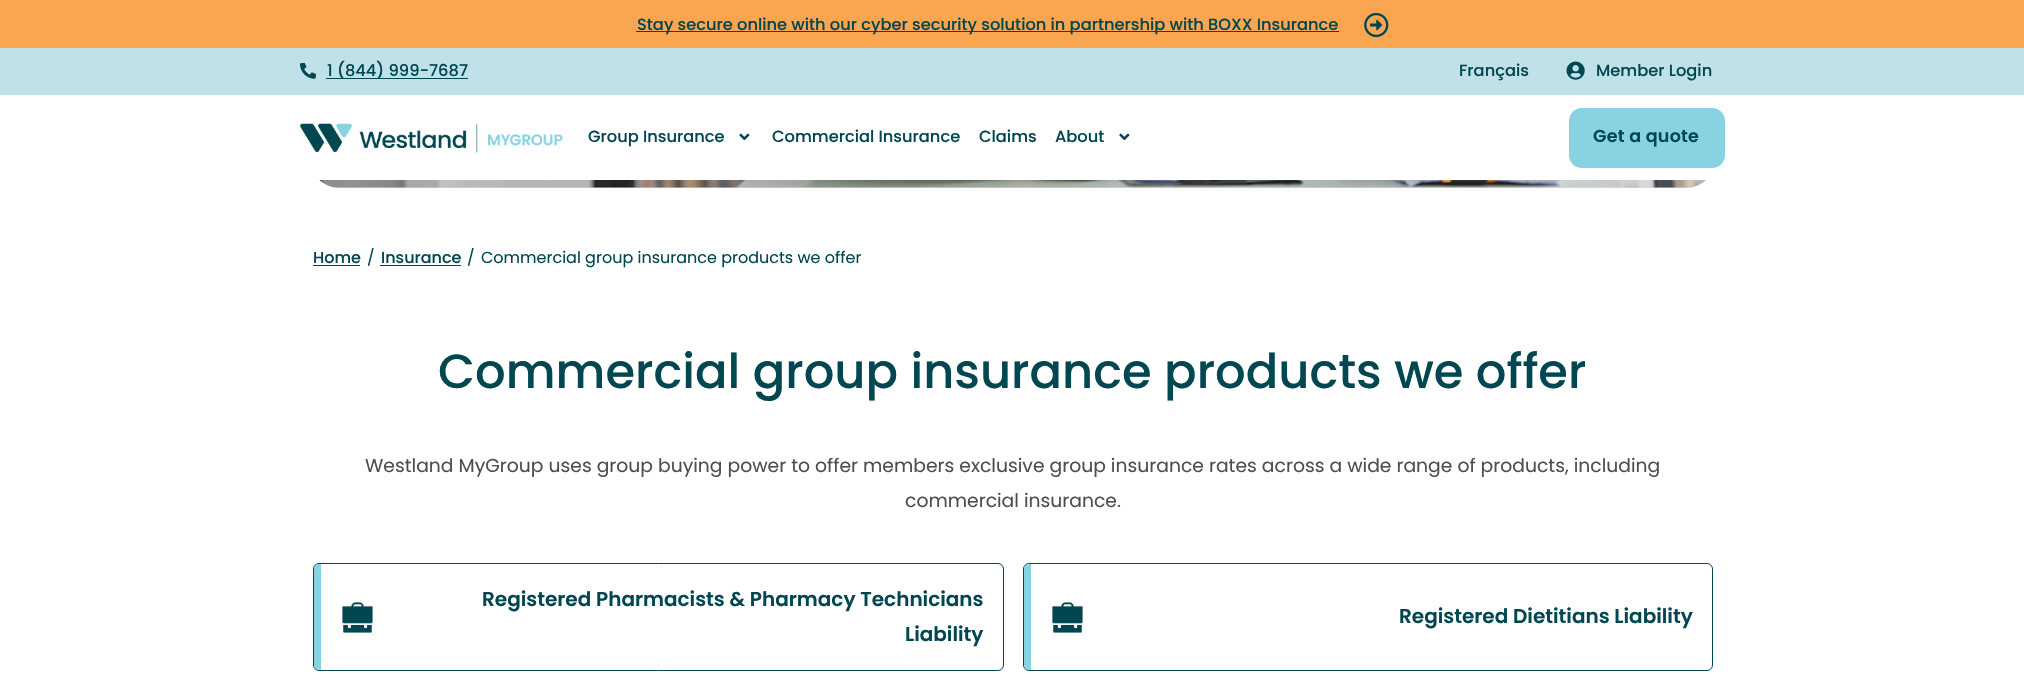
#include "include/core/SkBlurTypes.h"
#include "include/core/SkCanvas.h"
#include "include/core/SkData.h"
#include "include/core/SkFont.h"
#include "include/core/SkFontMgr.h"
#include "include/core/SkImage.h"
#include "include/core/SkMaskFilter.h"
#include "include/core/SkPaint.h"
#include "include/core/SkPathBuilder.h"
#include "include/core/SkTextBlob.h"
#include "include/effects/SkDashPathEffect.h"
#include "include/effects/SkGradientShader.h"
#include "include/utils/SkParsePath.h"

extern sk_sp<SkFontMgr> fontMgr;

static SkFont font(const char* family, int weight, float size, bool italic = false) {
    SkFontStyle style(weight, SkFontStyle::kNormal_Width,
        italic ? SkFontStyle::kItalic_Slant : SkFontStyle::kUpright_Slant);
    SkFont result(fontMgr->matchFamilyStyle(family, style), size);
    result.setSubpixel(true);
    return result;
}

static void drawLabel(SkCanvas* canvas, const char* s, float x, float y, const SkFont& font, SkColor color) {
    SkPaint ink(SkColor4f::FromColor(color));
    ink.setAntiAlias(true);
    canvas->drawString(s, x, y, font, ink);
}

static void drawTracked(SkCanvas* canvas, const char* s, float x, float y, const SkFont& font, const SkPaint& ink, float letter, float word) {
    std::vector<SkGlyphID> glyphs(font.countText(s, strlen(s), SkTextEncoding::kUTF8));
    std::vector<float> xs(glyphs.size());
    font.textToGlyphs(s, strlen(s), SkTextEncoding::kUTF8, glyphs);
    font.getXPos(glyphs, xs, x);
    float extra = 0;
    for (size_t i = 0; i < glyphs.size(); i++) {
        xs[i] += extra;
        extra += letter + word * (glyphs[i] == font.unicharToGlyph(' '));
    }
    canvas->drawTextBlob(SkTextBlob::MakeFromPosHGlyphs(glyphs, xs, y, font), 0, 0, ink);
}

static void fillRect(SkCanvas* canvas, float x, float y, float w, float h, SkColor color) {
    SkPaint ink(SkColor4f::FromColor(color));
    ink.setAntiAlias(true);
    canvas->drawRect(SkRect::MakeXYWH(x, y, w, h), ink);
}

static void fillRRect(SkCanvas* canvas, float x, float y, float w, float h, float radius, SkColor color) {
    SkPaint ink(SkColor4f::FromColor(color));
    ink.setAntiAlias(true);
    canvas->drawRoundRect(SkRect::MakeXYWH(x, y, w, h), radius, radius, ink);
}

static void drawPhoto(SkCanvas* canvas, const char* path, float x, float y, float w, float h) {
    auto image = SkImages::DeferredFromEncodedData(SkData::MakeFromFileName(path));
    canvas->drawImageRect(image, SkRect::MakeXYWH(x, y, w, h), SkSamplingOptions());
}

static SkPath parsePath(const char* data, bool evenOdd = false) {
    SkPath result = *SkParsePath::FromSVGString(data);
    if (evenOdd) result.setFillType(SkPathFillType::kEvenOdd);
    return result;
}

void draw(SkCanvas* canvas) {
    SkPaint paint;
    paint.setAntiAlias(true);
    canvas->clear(0xFFFFFFFF);
    drawPhoto(canvas, "assets/img6.png", 319, 180, 1387, 8);
    fillRRect(canvas, 313, -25, 1400, 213, 25, 0x334E4E4E);
    fillRect(canvas, 313, 95, 1400, 85, 0xFFFFFFFF);
    fillRect(canvas, 0, 0, 2024, 48, 0xFFFAA54F);
    fillRect(canvas, 636, 31, 703, 1, 0xFF004751);
    SkFont font1 = font("Poppins", 500, 16.25f);
    drawLabel(canvas, "Stay secure online with our cyber security solution in partnership with BOXX Insurance", 637, 30, font1, 0xFF004751);
    drawPhoto(canvas, "assets/img1.png", 1364, 13, 25, 25);
    fillRect(canvas, 0, 48, 2024, 47, 0xFFC0E1E7);
    drawPhoto(canvas, "assets/img2.png", 300, 63, 16, 16);
    fillRect(canvas, 326, 78, 142, 1, 0xFF004751);
    drawLabel(canvas, "1 (844) 999-7687", 327, 76, font1, 0xFF004751);
    drawLabel(canvas, "Français", 1459, 76, font1, 0xFF004751);
    drawPhoto(canvas, "assets/img3.png", 1566, 61, 19, 19);
    drawLabel(canvas, "Member Login", 1596, 76, font1, 0xFF004751);
    drawPhoto(canvas, "assets/img4.png", 300, 123, 263, 30);
    drawLabel(canvas, "Group Insurance", 588, 142, font1, 0xFF004751);
    drawPhoto(canvas, "assets/img5.png", 739, 133, 11, 8);
    drawLabel(canvas, "Commercial Insurance", 772, 142, font1, 0xFF004751);
    drawLabel(canvas, "Claims", 979, 142, font1, 0xFF004751);
    drawLabel(canvas, "About", 1055, 142, font1, 0xFF004751);
    drawPhoto(canvas, "assets/img5.png", 1119, 133, 11, 8);
    fillRRect(canvas, 1569, 108, 156, 60, 13, 0xFF87D3E1);
    SkFont font2 = font("Poppins", 600, 17.5f);
    paint.setColor(0xFF004751);
    drawTracked(canvas, "Get a quote", 1593, 142, font2, paint, 0.25f, 0);
    SkFont font3 = font("Poppins", 500, 16);
    drawLabel(canvas, "Home", 313, 263, font3, 0xFF004751);
    fillRect(canvas, 313, 265, 47, 1, 0xFF004751);
    SkFont font4 = font("Poppins", 400, 16);
    drawLabel(canvas, "/", 367, 263, font4, 0xFF004751);
    drawLabel(canvas, "Insurance", 381, 263, font3, 0xFF004751);
    fillRect(canvas, 380, 265, 81, 1, 0xFF004751);
    drawLabel(canvas, "/", 467, 263, font4, 0xFF004751);
    drawLabel(canvas, "Commercial group insurance products we offer", 481, 263, font4, 0xFF004751);
    SkFont font5 = font("Poppins", 500, 48);
    drawLabel(canvas, "Commercial group insurance products we offer", 438, 388, font5, 0xFF004751);
    SkFont font6 = font("Poppins", 400, 18.75f);
    drawLabel(canvas, "Westland MyGroup uses group buying power to offer members exclusive group insurance rates across a wide range of products, including", 365, 472, font6, 0xFF4E4E4E);
    drawLabel(canvas, "commercial insurance.", 905, 507, font6, 0xFF4E4E4E);
    paint.setStroke(true);
    paint.setStrokeWidth(1);
    canvas->drawRoundRect(SkRect::MakeXYWH(313.5f, 563.5f, 690, 107), 5.5f, 5.5f, paint);
    canvas->save();
    canvas->clipPath(parsePath("M319 564H998C1001 564 1003 566 1003 569V665C1003 668 1001 670 998 670H319C316 670 314 668 314 665V569C314 566 316 564 319 564Z"), true);
    paint.setStroke(false);
    paint.setColor(0xFF87D3E1);
    canvas->drawPath(parsePath("M320 564H321V670H320C316.5 670 314 667.5 314 664V570C314 566.5 316.5 564 320 564Z"), paint);
    canvas->restore();
    drawPhoto(canvas, "assets/img7.png", 342, 602, 31, 31);
    SkFont font7 = font("Poppins", 600, 20);
    drawLabel(canvas, "Registered Pharmacists & Pharmacy Technicians", 482, 606, font7, 0xFF004751);
    drawLabel(canvas, "Liability", 905, 641, font7, 0xFF004751);
    paint.setStroke(true);
    paint.setColor(0xFF004751);
    canvas->drawRoundRect(SkRect::MakeXYWH(1023.5f, 563.5f, 689, 107), 5.5f, 5.5f, paint);
    canvas->save();
    canvas->clipPath(parsePath("M1029 564H1706C1709 564 1711 566 1711 569V665C1711 668 1709 670 1706 670H1029C1026 670 1024 668 1024 665V569C1024 566 1026 564 1029 564Z"), true);
    paint.setStroke(false);
    paint.setColor(0xFF87D3E1);
    canvas->drawPath(parsePath("M1030 564H1031V670H1030C1026.5 670 1024 667.5 1024 664V570C1024 566.5 1026.5 564 1030 564Z"), paint);
    canvas->restore();
    drawPhoto(canvas, "assets/img7.png", 1052, 602, 31, 31);
    drawLabel(canvas, "Registered Dietitians Liability", 1399, 623, font7, 0xFF004751);
}
